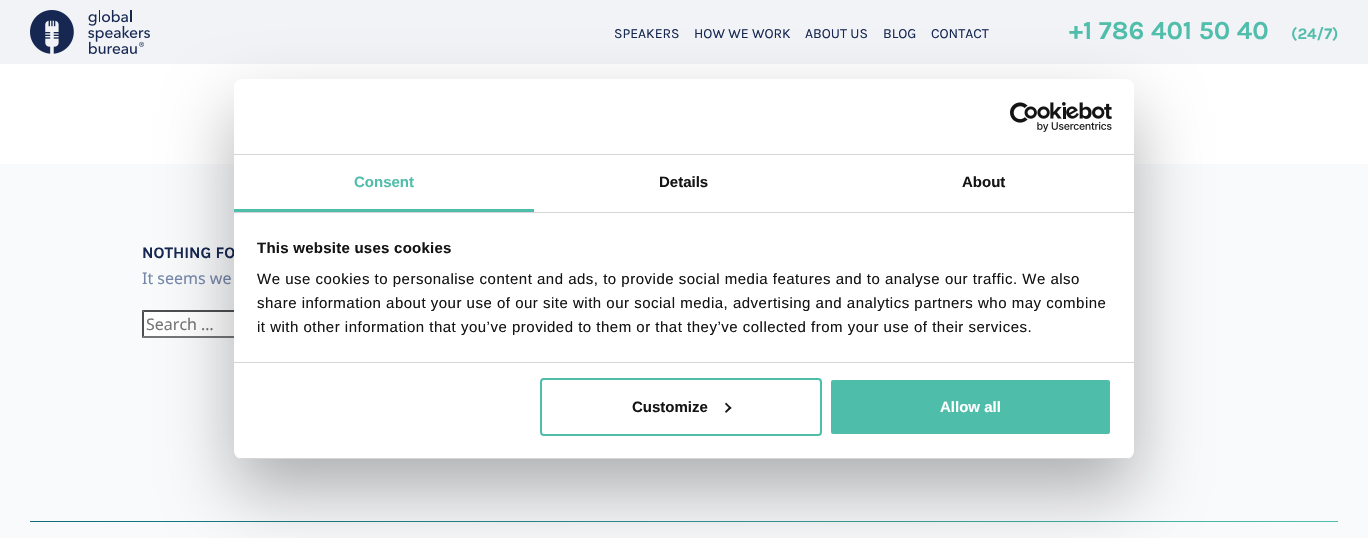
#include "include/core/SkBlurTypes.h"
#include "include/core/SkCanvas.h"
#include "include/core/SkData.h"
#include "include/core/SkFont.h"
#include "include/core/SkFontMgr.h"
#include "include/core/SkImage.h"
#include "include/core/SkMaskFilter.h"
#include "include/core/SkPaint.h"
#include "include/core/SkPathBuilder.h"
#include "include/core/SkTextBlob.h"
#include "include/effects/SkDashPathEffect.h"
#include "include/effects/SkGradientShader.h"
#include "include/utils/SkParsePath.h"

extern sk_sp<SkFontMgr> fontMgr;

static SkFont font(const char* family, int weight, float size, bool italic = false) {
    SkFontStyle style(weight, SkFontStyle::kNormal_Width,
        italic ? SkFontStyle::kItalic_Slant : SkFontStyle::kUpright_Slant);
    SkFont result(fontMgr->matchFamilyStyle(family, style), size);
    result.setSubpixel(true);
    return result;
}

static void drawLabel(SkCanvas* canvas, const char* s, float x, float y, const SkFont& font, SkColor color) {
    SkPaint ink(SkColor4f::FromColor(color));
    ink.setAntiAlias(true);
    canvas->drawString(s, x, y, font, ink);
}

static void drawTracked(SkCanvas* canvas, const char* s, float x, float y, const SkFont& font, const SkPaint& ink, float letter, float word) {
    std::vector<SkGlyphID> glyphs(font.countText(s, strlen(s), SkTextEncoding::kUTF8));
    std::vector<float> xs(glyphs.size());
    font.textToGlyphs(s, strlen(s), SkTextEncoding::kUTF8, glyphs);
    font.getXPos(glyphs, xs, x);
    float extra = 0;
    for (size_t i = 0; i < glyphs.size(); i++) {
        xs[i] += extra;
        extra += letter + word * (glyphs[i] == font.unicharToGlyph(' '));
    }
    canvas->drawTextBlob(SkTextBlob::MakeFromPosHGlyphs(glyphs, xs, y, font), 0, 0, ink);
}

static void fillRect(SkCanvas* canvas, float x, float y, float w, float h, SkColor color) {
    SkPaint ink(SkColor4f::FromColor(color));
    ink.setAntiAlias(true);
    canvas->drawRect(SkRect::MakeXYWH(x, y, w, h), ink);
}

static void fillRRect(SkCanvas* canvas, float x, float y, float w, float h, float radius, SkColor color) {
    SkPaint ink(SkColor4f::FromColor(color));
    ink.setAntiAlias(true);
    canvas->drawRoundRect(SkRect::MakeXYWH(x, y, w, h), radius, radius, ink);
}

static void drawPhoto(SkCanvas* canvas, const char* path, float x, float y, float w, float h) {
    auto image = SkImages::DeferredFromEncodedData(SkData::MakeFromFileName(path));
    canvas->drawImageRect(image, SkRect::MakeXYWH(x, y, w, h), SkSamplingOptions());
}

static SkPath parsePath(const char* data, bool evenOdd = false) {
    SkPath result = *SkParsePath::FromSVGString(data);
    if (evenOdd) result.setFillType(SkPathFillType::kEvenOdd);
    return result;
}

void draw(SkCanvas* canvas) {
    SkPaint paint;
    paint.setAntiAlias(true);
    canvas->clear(0xFFF9FAFC);
    fillRect(canvas, 0, 0, 1368, 64, 0xFFF2F3F6);
    drawPhoto(canvas, "assets/img1.png", 30, 10, 120, 44);
    SkFont font1 = font("Karla", 400, 14);
    drawLabel(canvas, "SPEAKERS", 614, 38, font1, 0xFF162852);
    drawLabel(canvas, "HOW WE WORK", 694, 38, font1, 0xFF162852);
    drawLabel(canvas, "ABOUT US", 805, 38, font1, 0xFF162852);
    drawLabel(canvas, "BLOG", 883, 38, font1, 0xFF162852);
    drawLabel(canvas, "CONTACT", 931, 38, font1, 0xFF162852);
    SkFont font2 = font("Karla", 700, 26);
    drawLabel(canvas, "+1 786 401 50 40", 1069, 39, font2, 0xFF50BEAB);
    SkFont font3 = font("Karla", 700, 16);
    drawLabel(canvas, "(24/7)", 1291, 39, font3, 0xFF50BEAB);
    fillRect(canvas, 0, 64, 1368, 100, 0xFFFFFFFF);
    drawLabel(canvas, "NOTHING FO", 142, 258, font3, 0xFF162852);
    SkFont font4 = font("Noto Sans", 400, 16);
    drawLabel(canvas, "It seems we", 142, 284, font4, 0xFF7688AA);
    fillRect(canvas, 142, 310, 92, 28, 0xFFFFFFFF);
    paint.setColor(0xFF4F4F4F);
    canvas->drawPath(parsePath("M142 310H331L329 312H144Z"), paint);
    paint.setColor(0xFF767676);
    canvas->drawPath(parsePath("M331 338H142L144 336H329Z"), paint);
    paint.setColor(0xFF4F4F4F);
    canvas->drawPath(parsePath("M142 338V310L144 312V336Z"), paint);
    drawLabel(canvas, "Search …", 146, 330, font4, 0xFF757575);
    {
        const SkColor colors[] = {0xFF50BEAB, 0xFF50BEAB, 0xFF0C6D78};
        const float stops[] = {0, 0.01f, 1};
        const SkPoint ends[] = {{1338, 521}, {30, 522}};
        paint.setShader(SkGradientShader::MakeLinear(ends, colors, stops, 3, SkTileMode::kClamp));
        paint.setAlpha(255);
    }
    canvas->drawRect(SkRect::MakeXYWH(30, 521, 1308, 1), paint);
    paint.setShader(nullptr);
    paint.setColor(0x4D000000);
    paint.setMaskFilter(SkMaskFilter::MakeBlur(kNormal_SkBlurStyle, 34));
    canvas->drawRoundRect(SkRect::MakeXYWH(234, 111, 900, 380), 8, 8, paint);
    paint.setMaskFilter(nullptr);
    fillRRect(canvas, 234, 79, 900, 380, 8, 0xFFFFFFFF);
    fillRect(canvas, 234, 154, 900, 1, 0xFFD6D6D6);
    drawPhoto(canvas, "assets/img2.png", 1010, 102, 102, 30);
    fillRect(canvas, 234, 212, 900, 1, 0xFFD6D6D6);
    fillRect(canvas, 234, 209, 300, 3, 0xFF4EBDAA);
    SkFont font5 = font("Liberation Sans", 700, 15);
    drawLabel(canvas, "Consent", 354, 187, font5, 0xFF50BEAB);
    drawLabel(canvas, "Details", 659, 187, font5, 0xFF141414);
    drawLabel(canvas, "About", 962, 187, font5, 0xFF141414);
    fillRect(canvas, 234, 362, 900, 1, 0xFFD6D6D6);
    paint.setColor(0xFF141414);
    drawTracked(canvas, "This website uses cookies", 257, 253, font5, paint, 0.25f, 0);
    SkFont font6 = font("Liberation Sans", 400, 15);
    drawTracked(canvas, "We use cookies to personalise content and ads, to provide social media features and to analyse our traffic. We also", 257, 284, font6, paint, 0.5f, 0);
    drawTracked(canvas, "share information about your use of our site with our social media, advertising and analytics partners who may combine", 257, 308, font6, paint, 0.5f, 0);
    drawTracked(canvas, "it with other information that you’ve provided to them or that they’ve collected from your use of their services.", 257, 332, font6, paint, 0.5f, 0);
    canvas->save();
    canvas->clipPath(parsePath("M242 79H1126C1130.5 79 1134 82.5 1134 87V451C1134 455.5 1130.5 459 1126 459H242C237.5 459 234 455.5 234 451V87C234 82.5 237.5 79 242 79Z"), true);
    fillRect(canvas, 234, 458, 900, 1, 0xFFD6D6D6);
    canvas->restore();
    paint.setStroke(true);
    paint.setStrokeWidth(2);
    paint.setColor(0xFF4EBDAA);
    canvas->drawRoundRect(SkRect::MakeXYWH(541, 379, 280, 56), 3, 3, paint);
    drawLabel(canvas, "Customize", 632, 412, font5, 0xFF141414);
    paint.setStroke(false);
    paint.setColor(0xFF141414);
    canvas->drawPath(parsePath("M726 402.5L731.5 408L730 409L725 404Z"), paint);
    canvas->drawPath(parsePath("M730 406.5L731.5 408L726 413L725 411.5Z"), paint);
    paint.setColor(0xFF4EBDAA);
    canvas->drawRoundRect(SkRect::MakeXYWH(830, 379, 281, 56), 3, 3, paint);
    paint.setStroke(true);
    paint.setColor(0xFFFFFFFF);
    canvas->drawRoundRect(SkRect::MakeXYWH(830, 379, 281, 56), 3, 3, paint);
    drawLabel(canvas, "Allow all", 940, 412, font5, 0xFFFFFFFF);
}
